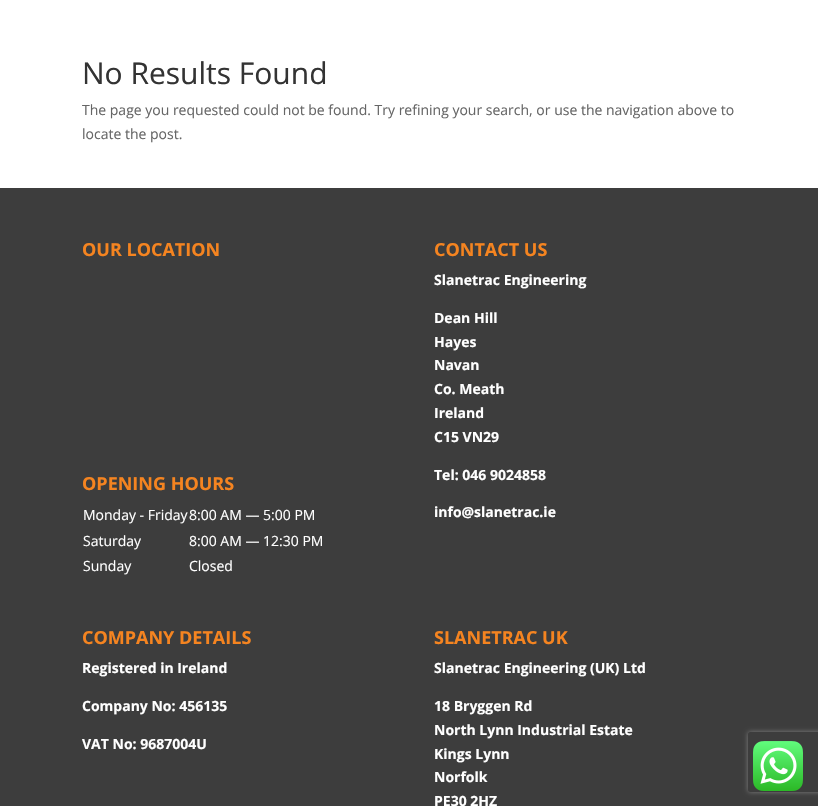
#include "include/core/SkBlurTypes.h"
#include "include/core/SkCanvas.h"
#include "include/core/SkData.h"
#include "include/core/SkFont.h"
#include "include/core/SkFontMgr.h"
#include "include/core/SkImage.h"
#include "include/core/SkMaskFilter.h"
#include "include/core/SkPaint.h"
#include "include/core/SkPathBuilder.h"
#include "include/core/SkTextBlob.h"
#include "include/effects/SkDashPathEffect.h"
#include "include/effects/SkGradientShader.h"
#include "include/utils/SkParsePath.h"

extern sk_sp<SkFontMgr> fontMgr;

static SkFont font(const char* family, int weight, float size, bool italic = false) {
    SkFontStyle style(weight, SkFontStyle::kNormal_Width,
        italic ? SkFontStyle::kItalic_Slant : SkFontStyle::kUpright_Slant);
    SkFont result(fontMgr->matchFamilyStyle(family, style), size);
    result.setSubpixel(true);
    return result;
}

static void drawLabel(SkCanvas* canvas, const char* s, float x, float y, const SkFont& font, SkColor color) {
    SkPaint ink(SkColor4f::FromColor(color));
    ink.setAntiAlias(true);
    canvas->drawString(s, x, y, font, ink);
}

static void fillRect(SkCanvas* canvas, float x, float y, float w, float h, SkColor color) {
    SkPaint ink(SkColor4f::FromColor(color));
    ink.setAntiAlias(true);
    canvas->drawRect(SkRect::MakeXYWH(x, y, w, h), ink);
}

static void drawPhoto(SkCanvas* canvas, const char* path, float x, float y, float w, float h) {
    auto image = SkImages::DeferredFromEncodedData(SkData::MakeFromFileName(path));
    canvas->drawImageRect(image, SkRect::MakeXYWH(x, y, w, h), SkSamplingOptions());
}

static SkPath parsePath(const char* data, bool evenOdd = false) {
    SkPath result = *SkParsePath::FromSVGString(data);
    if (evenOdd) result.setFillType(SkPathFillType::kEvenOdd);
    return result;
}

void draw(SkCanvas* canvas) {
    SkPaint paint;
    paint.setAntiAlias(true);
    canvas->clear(0xFFFFFFFF);
    SkFont font1 = font("Open Sans", 400, 30);
    drawLabel(canvas, "No Results Found", 82, 84, font1, 0xFF333333);
    SkFont font2 = font("Open Sans", 400, 14);
    drawLabel(canvas, "The page you requested could not be found. Try refining your search, or use the navigation above to", 82, 115, font2, 0xFF666666);
    drawLabel(canvas, "locate the post.", 82, 139, font2, 0xFF666666);
    fillRect(canvas, 0, 188, 818, 618, 0xFF3D3D3D);
    SkFont font3 = font("Open Sans", 700, 18);
    drawLabel(canvas, "OUR LOCATION", 82, 256, font3, 0xFFF58420);
    drawLabel(canvas, "OPENING HOURS", 82, 490, font3, 0xFFF58420);
    drawLabel(canvas, "Monday - Friday", 83, 520, font2, 0xFFFFFFFF);
    drawLabel(canvas, "8:00 AM — 5:00 PM", 189, 520, font2, 0xFFFFFFFF);
    drawLabel(canvas, "Saturday", 83, 546, font2, 0xFFFFFFFF);
    drawLabel(canvas, "8:00 AM — 12:30 PM", 189, 546, font2, 0xFFFFFFFF);
    drawLabel(canvas, "Sunday", 83, 571, font2, 0xFFFFFFFF);
    drawLabel(canvas, "Closed", 189, 571, font2, 0xFFFFFFFF);
    drawLabel(canvas, "CONTACT US", 434, 256, font3, 0xFFF58420);
    SkFont font4 = font("Open Sans", 700, 14);
    drawLabel(canvas, "Slanetrac Engineering", 434, 285, font4, 0xFFFFFFFF);
    drawLabel(canvas, "Dean Hill", 434, 323, font4, 0xFFFFFFFF);
    drawLabel(canvas, "Hayes", 434, 347, font4, 0xFFFFFFFF);
    drawLabel(canvas, "Navan", 434, 370, font4, 0xFFFFFFFF);
    drawLabel(canvas, "Co. Meath", 434, 394, font4, 0xFFFFFFFF);
    drawLabel(canvas, "Ireland", 434, 418, font4, 0xFFFFFFFF);
    drawLabel(canvas, "C15 VN29", 434, 442, font4, 0xFFFFFFFF);
    drawLabel(canvas, "Tel: 046 9024858", 434, 480, font4, 0xFFFFFFFF);
    drawLabel(canvas, "info@slanetrac.ie", 434, 517, font4, 0xFFFFFFFF);
    drawLabel(canvas, "COMPANY DETAILS", 82, 644, font3, 0xFFF58420);
    drawLabel(canvas, "Registered in Ireland", 82, 673, font4, 0xFFFFFFFF);
    drawLabel(canvas, "Company No: 456135", 82, 711, font4, 0xFFFFFFFF);
    drawLabel(canvas, "VAT No: 9687004U", 82, 749, font4, 0xFFFFFFFF);
    drawLabel(canvas, "SLANETRAC UK", 434, 644, font3, 0xFFF58420);
    drawLabel(canvas, "Slanetrac Engineering (UK) Ltd", 434, 673, font4, 0xFFFFFFFF);
    drawLabel(canvas, "18 Bryggen Rd", 434, 711, font4, 0xFFFFFFFF);
    drawLabel(canvas, "North Lynn Industrial Estate", 434, 735, font4, 0xFFFFFFFF);
    drawLabel(canvas, "Kings Lynn", 434, 759, font4, 0xFFFFFFFF);
    drawLabel(canvas, "Norfolk", 434, 782, font4, 0xFFFFFFFF);
    drawLabel(canvas, "PE30 2HZ", 434, 806, font4, 0xFFFFFFFF);
    canvas->save();
    canvas->clipPath(parsePath("M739 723H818V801H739ZM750 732H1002C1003 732 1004 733 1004 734V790C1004 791 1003 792 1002 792H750C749 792 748 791 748 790V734C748 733 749 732 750 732Z", true), true);
    paint.setColor(0xFF808080);
    paint.setMaskFilter(SkMaskFilter::MakeBlur(kNormal_SkBlurStyle, 2.5f));
    canvas->drawRoundRect(SkRect::MakeXYWH(748, 732, 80, 60), 2, 2, paint);
    paint.setMaskFilter(nullptr);
    canvas->restore();
    drawPhoto(canvas, "assets/img1.png", 753, 741, 50, 50);
}
